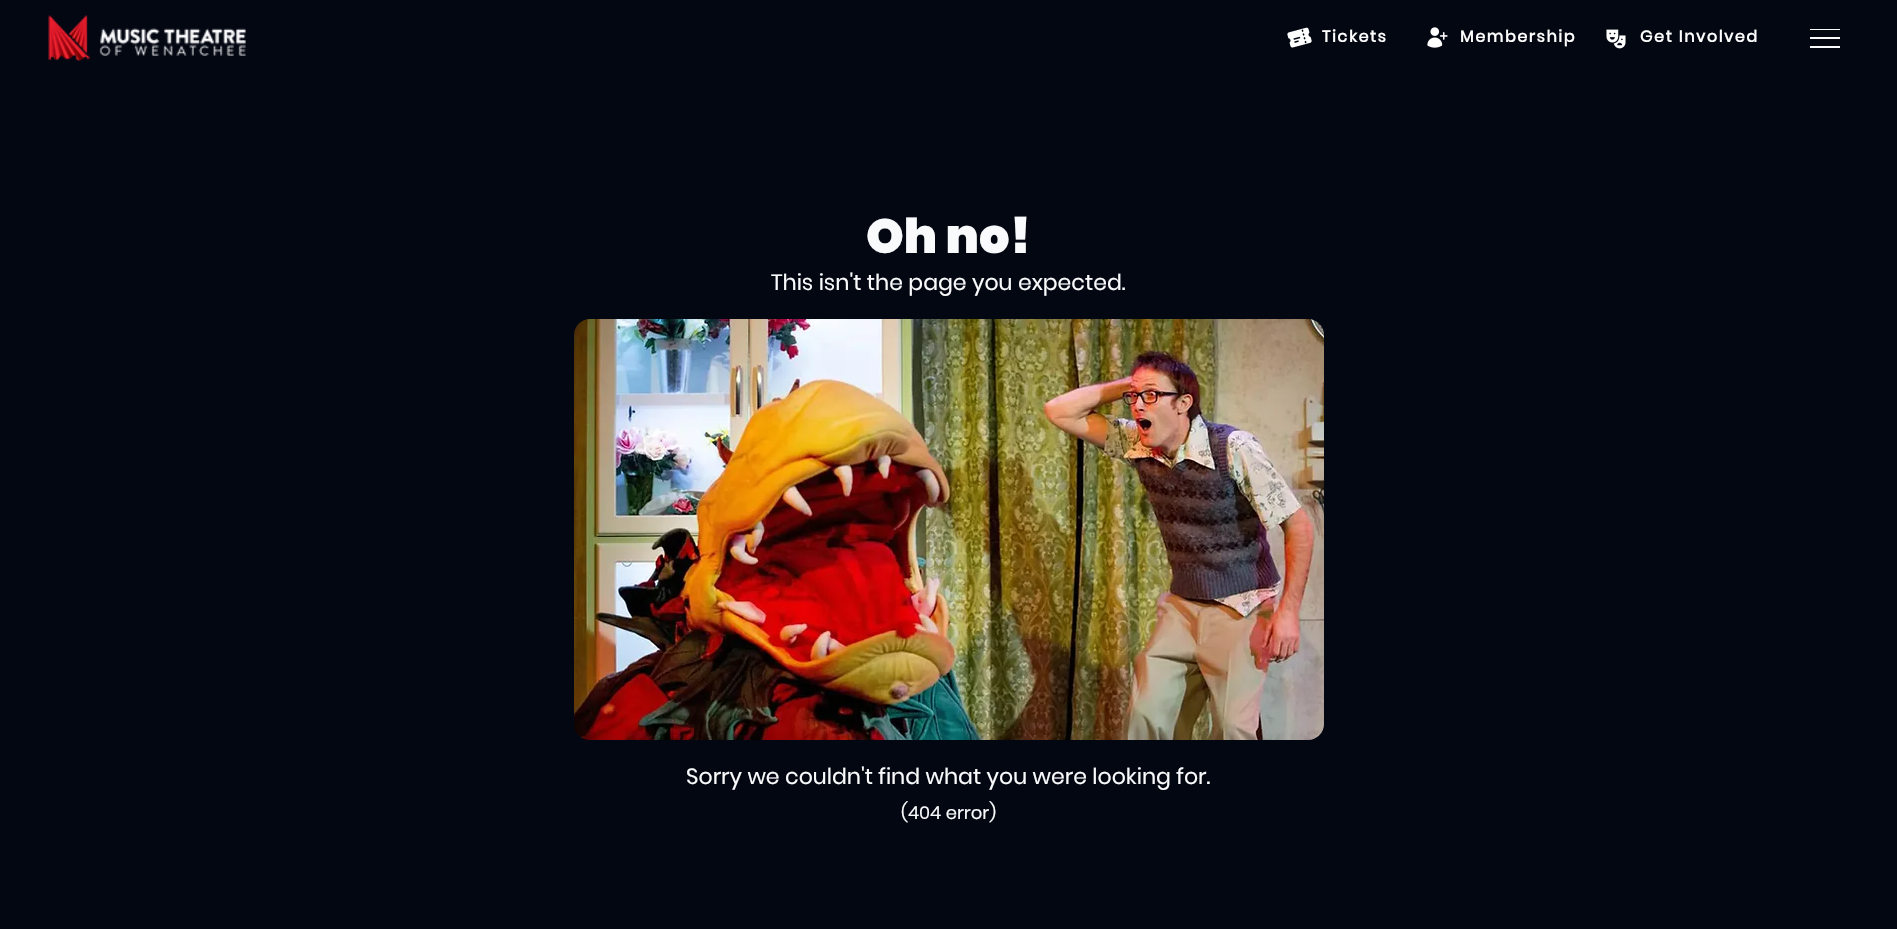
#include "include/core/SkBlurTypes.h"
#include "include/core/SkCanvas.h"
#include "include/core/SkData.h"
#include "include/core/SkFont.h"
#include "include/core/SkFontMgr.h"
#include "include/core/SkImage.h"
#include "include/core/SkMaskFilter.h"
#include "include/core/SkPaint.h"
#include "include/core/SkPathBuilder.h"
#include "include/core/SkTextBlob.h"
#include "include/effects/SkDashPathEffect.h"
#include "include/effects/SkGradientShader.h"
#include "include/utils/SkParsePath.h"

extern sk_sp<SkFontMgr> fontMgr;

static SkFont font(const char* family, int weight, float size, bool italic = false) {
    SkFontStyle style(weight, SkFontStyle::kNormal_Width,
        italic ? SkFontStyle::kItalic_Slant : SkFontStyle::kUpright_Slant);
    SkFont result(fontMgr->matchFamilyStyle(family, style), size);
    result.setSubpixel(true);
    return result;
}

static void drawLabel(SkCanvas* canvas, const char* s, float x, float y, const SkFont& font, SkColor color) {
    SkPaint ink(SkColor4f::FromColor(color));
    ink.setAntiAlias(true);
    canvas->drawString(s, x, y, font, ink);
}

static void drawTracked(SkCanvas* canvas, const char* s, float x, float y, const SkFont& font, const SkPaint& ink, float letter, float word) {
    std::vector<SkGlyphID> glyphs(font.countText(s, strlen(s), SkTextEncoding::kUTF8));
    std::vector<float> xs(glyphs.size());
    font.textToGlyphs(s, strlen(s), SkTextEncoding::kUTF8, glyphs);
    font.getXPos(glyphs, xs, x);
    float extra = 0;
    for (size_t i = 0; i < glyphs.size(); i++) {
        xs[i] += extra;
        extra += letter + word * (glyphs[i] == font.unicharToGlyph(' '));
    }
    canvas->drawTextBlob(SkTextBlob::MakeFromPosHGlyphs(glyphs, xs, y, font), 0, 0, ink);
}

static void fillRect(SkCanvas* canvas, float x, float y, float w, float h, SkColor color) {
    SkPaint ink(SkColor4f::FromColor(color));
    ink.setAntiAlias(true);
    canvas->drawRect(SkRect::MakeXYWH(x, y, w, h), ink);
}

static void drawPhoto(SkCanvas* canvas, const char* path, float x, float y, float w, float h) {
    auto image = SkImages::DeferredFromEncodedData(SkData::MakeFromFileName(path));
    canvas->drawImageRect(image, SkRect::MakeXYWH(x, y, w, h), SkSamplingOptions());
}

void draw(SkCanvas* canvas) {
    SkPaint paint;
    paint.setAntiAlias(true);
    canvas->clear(0xFF030712);
    drawPhoto(canvas, "assets/img1.png", 48, 15, 198, 46);
    drawPhoto(canvas, "assets/img2.png", 1287, 27, 25, 21);
    SkFont font1 = font("Poppins", 700, 16);
    paint.setColor(0xFFFFFFFF);
    drawTracked(canvas, "Tickets", 1322, 42, font1, paint, 1.6f, 0);
    drawPhoto(canvas, "assets/img3.png", 1427, 27, 21, 21);
    drawTracked(canvas, "Membership", 1460, 42, font1, paint, 1.6f, 0);
    drawPhoto(canvas, "assets/img4.png", 1606, 29, 20, 20);
    drawTracked(canvas, "Get Involved", 1640, 42, font1, paint, 1.6f, 0);
    fillRect(canvas, 1810, 29, 30, 1, 0xFFF9FAFB);
    fillRect(canvas, 1810, 37, 30, 2, 0xFFF9FAFB);
    fillRect(canvas, 1810, 46, 30, 2, 0xFFF9FAFB);
    SkFont font2 = font("Poppins", 900, 48);
    drawLabel(canvas, "Oh no!", 866, 253, font2, 0xFFF9FAFB);
    SkFont font3 = font("Poppins", 400, 22);
    drawLabel(canvas, "This isn't the page you expected.", 771, 290, font3, 0xFFF9FAFB);
    drawPhoto(canvas, "assets/img5.png", 574, 319, 750, 421);
    drawLabel(canvas, "Sorry we couldn't find what you were looking for.", 686, 784, font3, 0xFFF9FAFB);
    SkFont font4 = font("Poppins", 400, 18);
    drawLabel(canvas, "(404 error)", 901, 819, font4, 0xFFF9FAFB);
}
